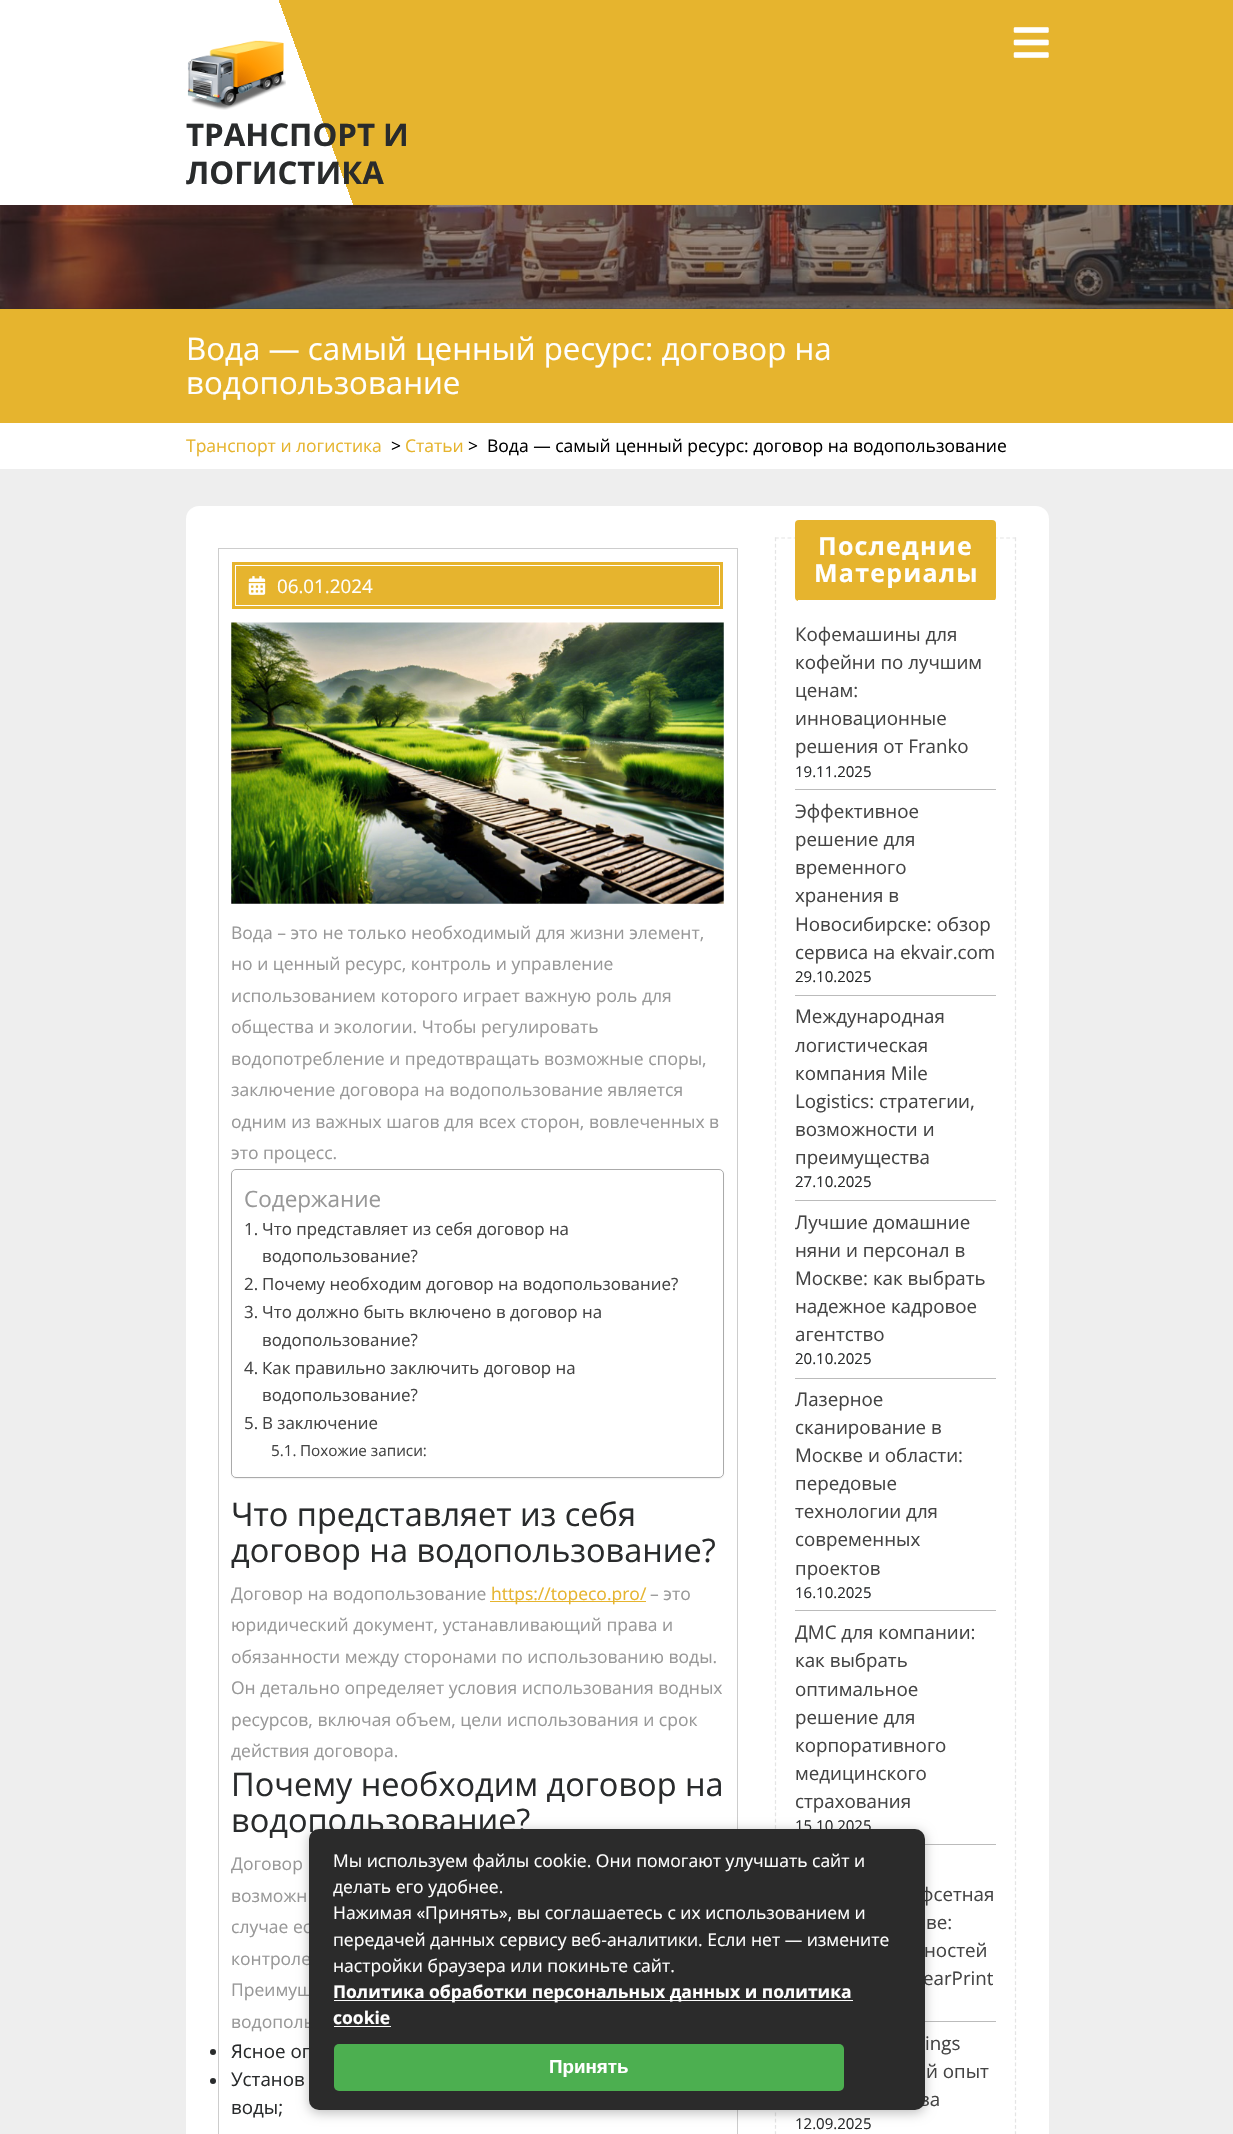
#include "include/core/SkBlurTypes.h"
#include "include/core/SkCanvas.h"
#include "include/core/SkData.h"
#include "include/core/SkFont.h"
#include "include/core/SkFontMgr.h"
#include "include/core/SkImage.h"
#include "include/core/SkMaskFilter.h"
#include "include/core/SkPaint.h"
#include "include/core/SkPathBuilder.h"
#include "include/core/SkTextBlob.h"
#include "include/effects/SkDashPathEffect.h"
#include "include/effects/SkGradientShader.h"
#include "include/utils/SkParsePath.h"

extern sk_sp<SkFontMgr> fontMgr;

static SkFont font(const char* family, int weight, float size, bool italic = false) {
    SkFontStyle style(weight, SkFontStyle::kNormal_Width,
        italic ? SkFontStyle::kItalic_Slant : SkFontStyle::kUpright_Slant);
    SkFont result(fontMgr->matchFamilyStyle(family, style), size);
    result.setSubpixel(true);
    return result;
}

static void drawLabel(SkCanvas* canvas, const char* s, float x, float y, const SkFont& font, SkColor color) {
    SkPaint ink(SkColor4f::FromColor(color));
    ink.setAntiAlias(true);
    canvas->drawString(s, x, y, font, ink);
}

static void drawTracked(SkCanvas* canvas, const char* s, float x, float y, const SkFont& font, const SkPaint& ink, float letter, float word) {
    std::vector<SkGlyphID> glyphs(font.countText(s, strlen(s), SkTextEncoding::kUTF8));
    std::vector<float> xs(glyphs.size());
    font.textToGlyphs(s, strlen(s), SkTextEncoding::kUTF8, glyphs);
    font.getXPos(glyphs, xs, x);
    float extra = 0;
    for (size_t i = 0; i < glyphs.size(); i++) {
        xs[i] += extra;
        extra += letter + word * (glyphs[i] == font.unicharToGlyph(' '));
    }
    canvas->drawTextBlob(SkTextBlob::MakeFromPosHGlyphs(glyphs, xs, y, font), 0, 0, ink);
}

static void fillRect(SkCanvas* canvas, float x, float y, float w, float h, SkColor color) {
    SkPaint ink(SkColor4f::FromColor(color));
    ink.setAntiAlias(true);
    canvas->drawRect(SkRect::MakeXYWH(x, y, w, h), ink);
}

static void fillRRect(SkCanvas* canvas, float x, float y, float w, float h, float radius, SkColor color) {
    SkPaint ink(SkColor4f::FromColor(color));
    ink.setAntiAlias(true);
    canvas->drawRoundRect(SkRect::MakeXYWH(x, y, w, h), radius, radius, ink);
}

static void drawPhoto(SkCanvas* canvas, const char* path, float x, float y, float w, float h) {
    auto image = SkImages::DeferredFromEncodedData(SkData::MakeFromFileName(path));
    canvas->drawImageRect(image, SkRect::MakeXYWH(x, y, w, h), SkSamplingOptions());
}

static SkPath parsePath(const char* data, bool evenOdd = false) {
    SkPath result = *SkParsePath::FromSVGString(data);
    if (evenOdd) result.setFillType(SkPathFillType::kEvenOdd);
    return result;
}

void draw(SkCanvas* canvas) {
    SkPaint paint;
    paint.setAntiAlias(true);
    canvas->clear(0xFFEEEEEE);
    {
        const SkColor colors[] = {0xFFFFFFFF, 0xFFE6B42E};
        const float stops[] = {0.27f, 0.27f};
        const SkPoint ends[] = {{39, 313}, {1195, -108}};
        paint.setShader(SkGradientShader::MakeLinear(ends, colors, stops, 2, SkTileMode::kClamp));
        paint.setAlpha(255);
    }
    canvas->drawRect(SkRect::MakeXYWH(0, 0, 1233, 205), paint);
    drawPhoto(canvas, "assets/img1.png", 1013, 27, 36, 31);
    drawPhoto(canvas, "assets/img2.png", 187, 40, 99, 70);
    SkFont font1 = font("Open Sans", 700, 31.25f);
    drawLabel(canvas, "ТРАНСПОРТ И", 186, 146, font1, 0xFF292B2C);
    drawLabel(canvas, "ЛОГИСТИКА", 186, 184, font1, 0xFF292B2C);
    fillRect(canvas, 0, 205, 1233, 104, 0xFF2E2E2E);
    drawPhoto(canvas, "assets/img3.png", 0, 205, 1233, 104);
    fillRect(canvas, 0, 309, 1233, 114, 0xFFE6B42E);
    SkFont font2 = font("Open Sans", 400, 31.25f);
    drawLabel(canvas, "Вода — самый ценный ресурс: договор на", 186, 360, font2, 0xFFFFFFFF);
    drawLabel(canvas, "водопользование", 186, 394, font2, 0xFFFFFFFF);
    fillRect(canvas, 0, 423, 1233, 46, 0xFFFFFFFF);
    SkFont font3 = font("Open Sans", 400, 17.5f);
    drawLabel(canvas, "Транспорт и логистика", 186, 452, font3, 0xFFE6B42E);
    drawLabel(canvas, ">", 391, 452, font3, 0xFF000000);
    drawLabel(canvas, "Статьи", 405, 452, font3, 0xFFE6B42E);
    drawLabel(canvas, ">", 468, 452, font3, 0xFF000000);
    drawLabel(canvas, "Вода — самый ценный ресурс: договор на водопользование", 487, 452, font3, 0xFF000000);
    fillRRect(canvas, 186, 506, 863, 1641, 13, 0xFFFFFFFF);
    paint.setStroke(true);
    paint.setStrokeWidth(1);
    paint.setShader(nullptr);
    paint.setColor(0xFFCDCDCD);
    canvas->drawRect(SkRect::MakeXYWH(218.5f, 548.5f, 519, 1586), paint);
    fillRect(canvas, 232, 562, 491, 47, 0xFFE6B42E);
    paint.setColor(0xFFFFFFFF);
    canvas->drawRect(SkRect::MakeXYWH(235.5f, 565.5f, 484, 40), paint);
    drawPhoto(canvas, "assets/img4.png", 248, 576, 18, 19);
    SkFont font4 = font("Open Sans", 400, 18.75f);
    drawLabel(canvas, "06.01.2024", 277, 593, font4, 0xFFFFFFFF);
    drawPhoto(canvas, "assets/img5.png", 231, 622, 493, 282);
    drawLabel(canvas, "Вода – это не только необходимый для жизни элемент,", 231, 939, font3, 0xFF989898);
    drawLabel(canvas, "но и ценный ресурс, контроль и управление", 231, 970, font3, 0xFF989898);
    drawLabel(canvas, "использованием которого играет важную роль для", 231, 1002, font3, 0xFF989898);
    drawLabel(canvas, "общества и экологии. Чтобы регулировать", 231, 1033, font3, 0xFF989898);
    drawLabel(canvas, "водопотребление и предотвращать возможные споры,", 231, 1065, font3, 0xFF989898);
    drawLabel(canvas, "заключение договора на водопользование является", 231, 1096, font3, 0xFF989898);
    drawLabel(canvas, "одним из важных шагов для всех сторон, вовлеченных в", 231, 1128, font3, 0xFF989898);
    drawLabel(canvas, "это процесс.", 231, 1159, font3, 0xFF989898);
    canvas->save();
    canvas->clipPath(parsePath("M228 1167H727V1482H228ZM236 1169H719C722 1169 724 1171 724 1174V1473C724 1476 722 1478 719 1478H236C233 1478 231 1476 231 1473V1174C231 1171 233 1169 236 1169Z", true), true);
    paint.setStroke(false);
    paint.setColor(0x0D000000);
    paint.setMaskFilter(SkMaskFilter::MakeBlur(kNormal_SkBlurStyle, 0.5f));
    canvas->drawRoundRect(SkRect::MakeXYWH(231, 1170, 493, 309), 5, 5, paint);
    paint.setMaskFilter(nullptr);
    canvas->restore();
    paint.setStroke(true);
    paint.setColor(0xFFAAAAAA);
    canvas->drawRoundRect(SkRect::MakeXYWH(231.5f, 1169.5f, 492, 308), 4.5f, 4.5f, paint);
    SkFont font5 = font("Open Sans", 400, 22.5f);
    drawLabel(canvas, "Содержание", 244, 1207, font5, 0xFF989898);
    SkFont font6 = font("Open Sans", 400, 16.9f);
    drawLabel(canvas, "1.", 244, 1235, font6, 0xFF444444);
    drawLabel(canvas, "Что представляет из себя договор на", 262, 1235, font6, 0xFF444444);
    drawLabel(canvas, "водопользование?", 262, 1262, font6, 0xFF444444);
    drawLabel(canvas, "2.", 244, 1290, font6, 0xFF444444);
    drawLabel(canvas, "Почему необходим договор на водопользование?", 262, 1290, font6, 0xFF444444);
    drawLabel(canvas, "3.", 244, 1318, font6, 0xFF444444);
    drawLabel(canvas, "Что должно быть включено в договор на", 262, 1318, font6, 0xFF444444);
    drawLabel(canvas, "водопользование?", 262, 1346, font6, 0xFF444444);
    drawLabel(canvas, "4.", 244, 1374, font6, 0xFF444444);
    drawLabel(canvas, "Как правильно заключить договор на", 262, 1374, font6, 0xFF444444);
    drawLabel(canvas, "водопользование?", 262, 1401, font6, 0xFF444444);
    drawLabel(canvas, "5.", 244, 1429, font6, 0xFF444444);
    drawLabel(canvas, "В заключение", 262, 1429, font6, 0xFF444444);
    SkFont font7 = font("Open Sans", 400, 15.25f);
    drawLabel(canvas, "5.1.", 271, 1456, font7, 0xFF444444);
    drawLabel(canvas, "Похожие записи:", 300, 1456, font7, 0xFF444444);
    SkFont font8 = font("Open Sans", 400, 32.5f);
    drawLabel(canvas, "Что представляет из себя", 231, 1526, font8, 0xFF292B2C);
    drawLabel(canvas, "договор на водопользование?", 231, 1562, font8, 0xFF292B2C);
    drawLabel(canvas, "Договор на водопользование", 231, 1600, font3, 0xFF989898);
    fillRect(canvas, 490, 1601, 156, 1, 0xFFE6B42E);
    drawLabel(canvas, "https://topeco.pro/", 491, 1600, font3, 0xFFE6B42E);
    drawLabel(canvas, "– это", 650, 1600, font3, 0xFF989898);
    drawLabel(canvas, "юридический документ, устанавливающий права и", 231, 1631, font3, 0xFF989898);
    drawLabel(canvas, "обязанности между сторонами по использованию воды.", 231, 1663, font3, 0xFF989898);
    drawLabel(canvas, "Он детально определяет условия использования водных", 231, 1694, font3, 0xFF989898);
    drawLabel(canvas, "ресурсов, включая объем, цели использования и срок", 231, 1726, font3, 0xFF989898);
    drawLabel(canvas, "действия договора.", 231, 1757, font3, 0xFF989898);
    drawLabel(canvas, "Почему необходим договор на", 231, 1796, font8, 0xFF292B2C);
    drawLabel(canvas, "водопользование?", 231, 1832, font8, 0xFF292B2C);
    drawLabel(canvas, "Договор", 231, 1870, font3, 0xFF989898);
    drawLabel(canvas, "возможн", 231, 1902, font3, 0xFF989898);
    drawLabel(canvas, "случае ес", 231, 1933, font3, 0xFF989898);
    drawLabel(canvas, "контроле", 231, 1965, font3, 0xFF989898);
    drawLabel(canvas, "Преимущ", 231, 1996, font3, 0xFF989898);
    drawLabel(canvas, "водополь", 231, 2028, font3, 0xFF989898);
    paint.setStroke(false);
    paint.setColor(0xFF292B2C);
    canvas->drawCircle(213, 2052, 3, paint);
    drawLabel(canvas, "Ясное оп", 231, 2058, font4, 0xFF292B2C);
    canvas->drawCircle(213, 2081, 3, paint);
    drawLabel(canvas, "Установ", 231, 2086, font4, 0xFF292B2C);
    drawLabel(canvas, "воды;", 231, 2114, font4, 0xFF292B2C);
    paint.setStroke(true);
    paint.setStrokeWidth(1.2f);
    paint.setColor(0xFFE4E4E4);
    paint.setPathEffect(SkDashPathEffect::Make({{3.75f, 2.5f}}, 0));
    canvas->drawPath(parsePath("M775 538H1016"), paint);
    paint.setPathEffect(nullptr);
    paint.setPathEffect(SkDashPathEffect::Make({{3.75f, 2.5f}}, 0));
    canvas->drawPath(parsePath("M1015.5 537.5V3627.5"), paint);
    paint.setPathEffect(nullptr);
    paint.setPathEffect(SkDashPathEffect::Make({{3.75f, 2.5f}}, 0));
    canvas->drawPath(parsePath("M775.5 537.5V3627.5"), paint);
    paint.setPathEffect(nullptr);
    fillRRect(canvas, 795, 520, 201, 81, 4, 0xFFE6B42E);
    fillRect(canvas, 798, 600, 197, 1, 0xFFFFFFFF);
    SkFont font9 = font("Open Sans", 700, 25);
    paint.setStroke(false);
    paint.setColor(0xFFFFFFFF);
    drawTracked(canvas, "Последние", 818, 555, font9, paint, 1.25f, 0);
    drawTracked(canvas, "Материалы", 814, 582, font9, paint, 1.25f, 0);
    fillRect(canvas, 795, 789, 201, 1, 0xFFBBBBBB);
    drawLabel(canvas, "Кофемашины для", 795, 641, font4, 0xFF444444);
    drawLabel(canvas, "кофейни по лучшим", 795, 669, font4, 0xFF444444);
    drawLabel(canvas, "ценам:", 795, 697, font4, 0xFF444444);
    drawLabel(canvas, "инновационные", 795, 725, font4, 0xFF444444);
    drawLabel(canvas, "решения от Franko", 795, 753, font4, 0xFF444444);
    SkFont font10 = font("Open Sans", 400, 15);
    drawLabel(canvas, "19.11.2025", 795, 777, font10, 0xFF292B2C);
    fillRect(canvas, 795, 995, 201, 1, 0xFFBBBBBB);
    drawLabel(canvas, "Эффективное", 795, 818, font4, 0xFF444444);
    drawLabel(canvas, "решение для", 795, 846, font4, 0xFF444444);
    drawLabel(canvas, "временного", 795, 874, font4, 0xFF444444);
    drawLabel(canvas, "хранения в", 795, 902, font4, 0xFF444444);
    drawLabel(canvas, "Новосибирске: обзор", 795, 931, font4, 0xFF444444);
    drawLabel(canvas, "сервиса на ekvair.com", 795, 959, font4, 0xFF444444);
    drawLabel(canvas, "29.10.2025", 795, 982, font10, 0xFF292B2C);
    fillRect(canvas, 795, 1200, 201, 1, 0xFFBBBBBB);
    drawLabel(canvas, "Международная", 795, 1023, font4, 0xFF444444);
    drawLabel(canvas, "логистическая", 795, 1052, font4, 0xFF444444);
    drawLabel(canvas, "компания Mile", 795, 1080, font4, 0xFF444444);
    drawLabel(canvas, "Logistics: стратегии,", 795, 1108, font4, 0xFF444444);
    drawLabel(canvas, "возможности и", 795, 1136, font4, 0xFF444444);
    drawLabel(canvas, "преимущества", 795, 1164, font4, 0xFF444444);
    drawLabel(canvas, "27.10.2025", 795, 1187, font10, 0xFF292B2C);
    fillRect(canvas, 795, 1378, 201, 1, 0xFFBBBBBB);
    drawLabel(canvas, "Лучшие домашние", 795, 1229, font4, 0xFF444444);
    drawLabel(canvas, "няни и персонал в", 795, 1257, font4, 0xFF444444);
    drawLabel(canvas, "Москве: как выбрать", 795, 1285, font4, 0xFF444444);
    drawLabel(canvas, "надежное кадровое", 795, 1313, font4, 0xFF444444);
    drawLabel(canvas, "агентство", 795, 1341, font4, 0xFF444444);
    drawLabel(canvas, "20.10.2025", 795, 1364, font10, 0xFF292B2C);
    fillRect(canvas, 795, 1610, 201, 1, 0xFFBBBBBB);
    drawLabel(canvas, "Лазерное", 795, 1406, font4, 0xFF444444);
    drawLabel(canvas, "сканирование в", 795, 1434, font4, 0xFF444444);
    drawLabel(canvas, "Москве и области:", 795, 1462, font4, 0xFF444444);
    drawLabel(canvas, "передовые", 795, 1490, font4, 0xFF444444);
    drawLabel(canvas, "технологии для", 795, 1518, font4, 0xFF444444);
    drawLabel(canvas, "современных", 795, 1546, font4, 0xFF444444);
    drawLabel(canvas, "проектов", 795, 1575, font4, 0xFF444444);
    drawLabel(canvas, "16.10.2025", 795, 1598, font10, 0xFF292B2C);
    fillRect(canvas, 925, 1844, 71, 1, 0xFFBBBBBB);
    drawLabel(canvas, "ДМС для компании:", 795, 1639, font4, 0xFF444444);
    drawLabel(canvas, "как выбрать", 795, 1667, font4, 0xFF444444);
    drawLabel(canvas, "оптимальное", 795, 1696, font4, 0xFF444444);
    drawLabel(canvas, "решение для", 795, 1724, font4, 0xFF444444);
    drawLabel(canvas, "корпоративного", 795, 1752, font4, 0xFF444444);
    drawLabel(canvas, "медицинского", 795, 1780, font4, 0xFF444444);
    drawLabel(canvas, "страхования", 795, 1808, font4, 0xFF444444);
    drawLabel(canvas, "15.10.2025", 795, 1831, font10, 0xFF292B2C);
    fillRect(canvas, 925, 2021, 71, 1, 0xFFBBBBBB);
    drawLabel(canvas, "фсетная", 920, 1901, font4, 0xFF444444);
    drawLabel(canvas, "ве:", 926, 1929, font4, 0xFF444444);
    drawLabel(canvas, "ностей", 924, 1957, font4, 0xFF444444);
    drawLabel(canvas, "earPrint", 923, 1985, font4, 0xFF444444);
    drawLabel(canvas, "ings", 925, 2050, font4, 0xFF444444);
    drawLabel(canvas, "й опыт", 926, 2078, font4, 0xFF444444);
    drawLabel(canvas, "ва", 919, 2106, font4, 0xFF444444);
    drawLabel(canvas, "12.09.2025", 795, 2129, font10, 0xFF292B2C);
    paint.setColor(0x40000000);
    paint.setMaskFilter(SkMaskFilter::MakeBlur(kNormal_SkBlurStyle, 6));
    canvas->drawRoundRect(SkRect::MakeXYWH(309, 1831, 616, 282), 10, 10, paint);
    paint.setMaskFilter(nullptr);
    fillRRect(canvas, 309, 1829, 616, 281, 10, 0xFF2B2B2B);
    drawLabel(canvas, "Мы используем файлы cookie. Они помогают улучшать сайт и", 333, 1867, font3, 0xFFFFFFFF);
    drawLabel(canvas, "делать его удобнее.", 333, 1893, font3, 0xFFFFFFFF);
    drawLabel(canvas, "Нажимая «Принять», вы соглашаетесь с их использованием и", 333, 1919, font3, 0xFFFFFFFF);
    drawLabel(canvas, "передачей данных сервису веб-аналитики. Если нет — измените", 333, 1946, font3, 0xFFFFFFFF);
    drawLabel(canvas, "настройки браузера или покиньте сайт.", 333, 1972, font3, 0xFFFFFFFF);
    fillRect(canvas, 334, 2000, 519, 1, 0xFFFEFEFE);
    SkFont font11 = font("Open Sans", 700, 17.5f);
    drawLabel(canvas, "Политика обработки персональных данных и политика", 333, 1998, font11, 0xFFFFFFFF);
    drawLabel(canvas, "cookie", 333, 2024, font11, 0xFFFFFFFF);
    fillRect(canvas, 334, 2026, 57, 1, 0xFFFEFEFE);
    fillRRect(canvas, 334, 2044, 510, 47, 5, 0xFF4CAF50);
    SkFont font12 = font("Liberation Sans", 700, 18.75f);
    drawLabel(canvas, "Принять", 549, 2073, font12, 0xFFFFFFFF);
}
